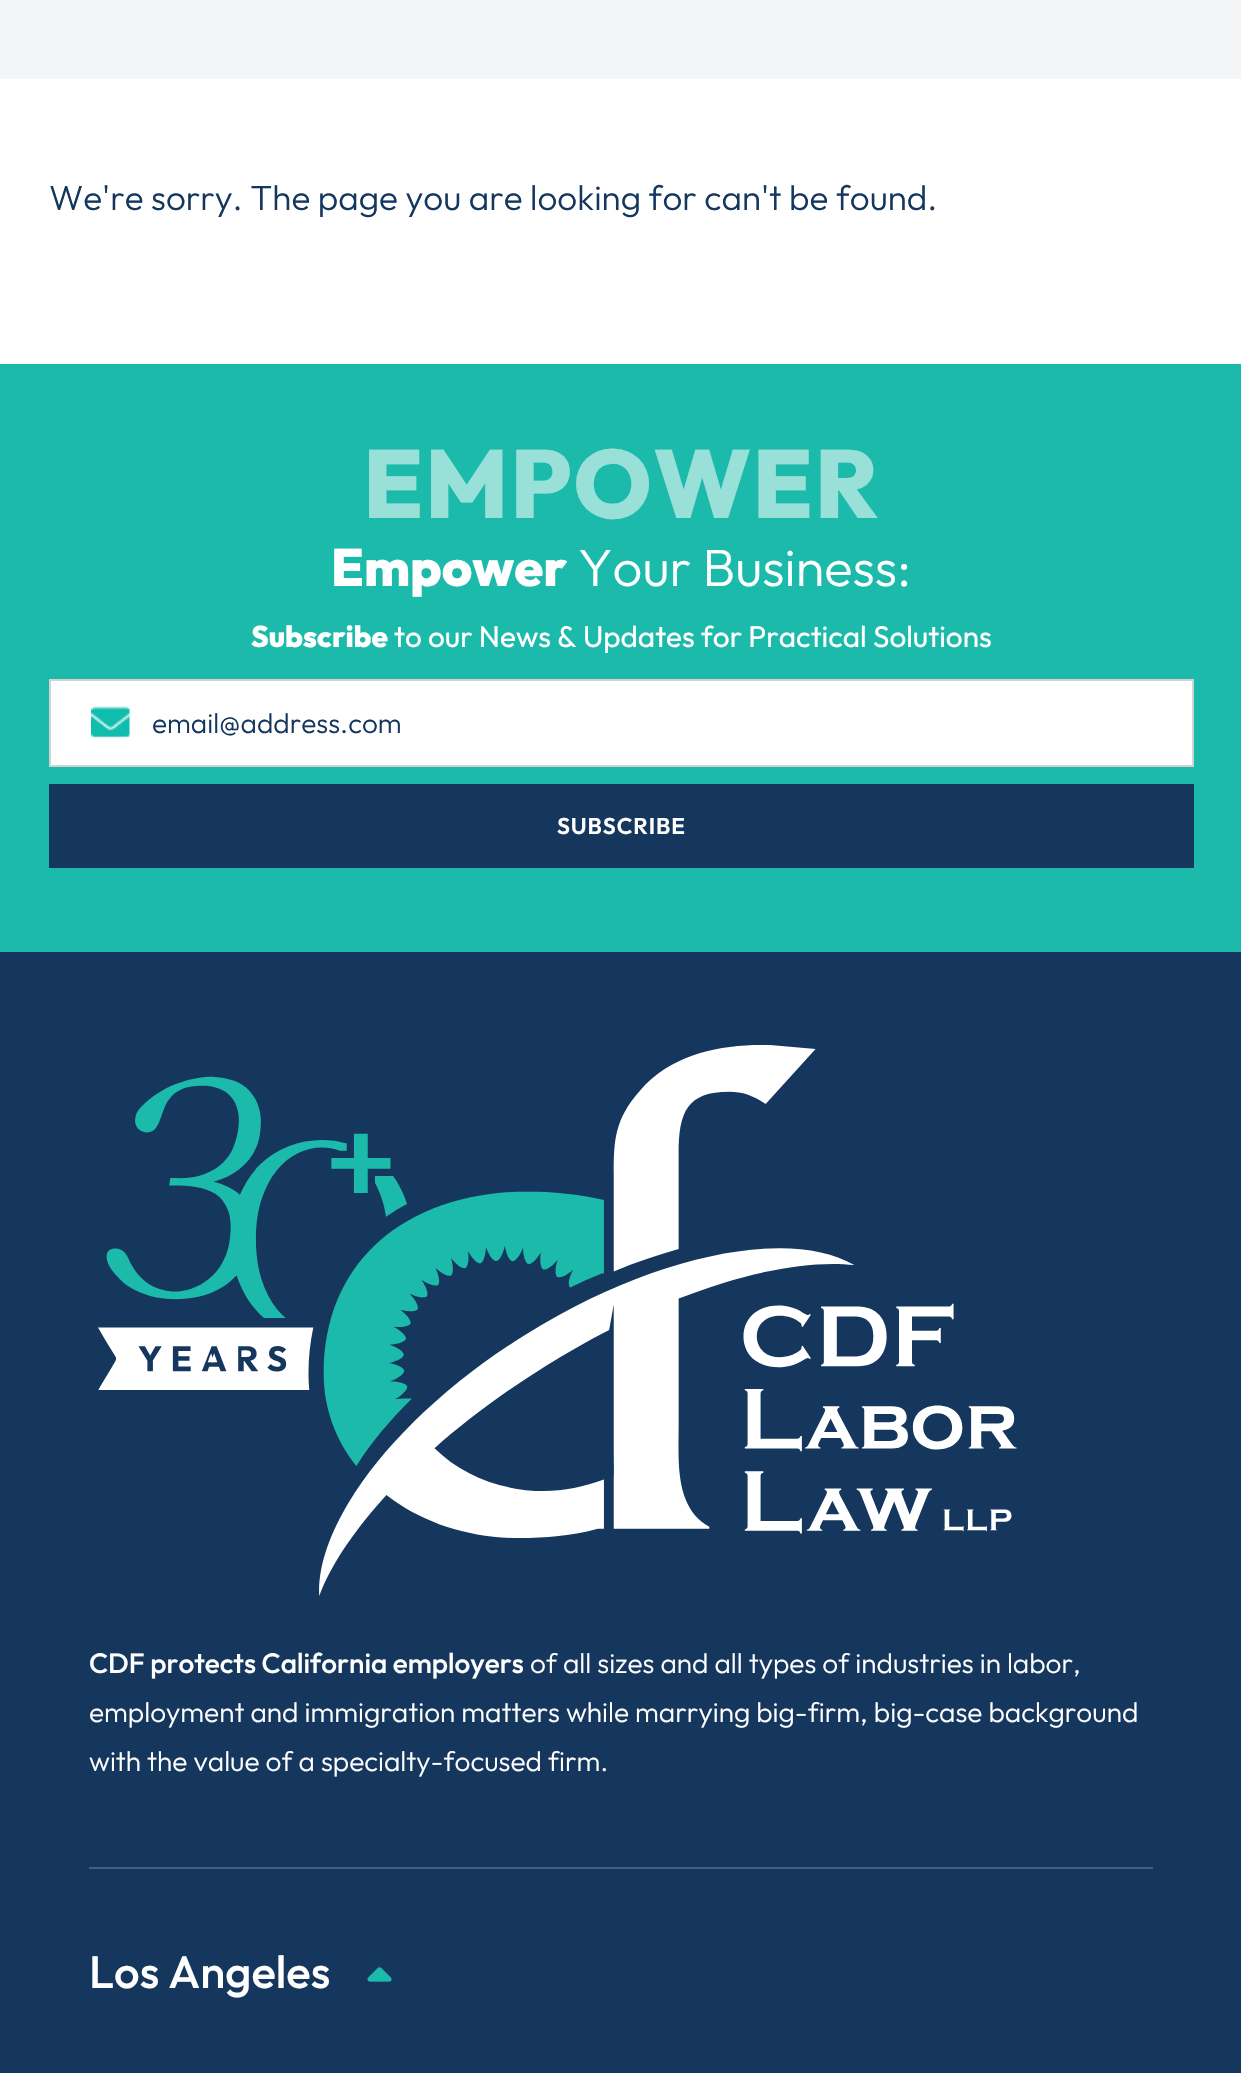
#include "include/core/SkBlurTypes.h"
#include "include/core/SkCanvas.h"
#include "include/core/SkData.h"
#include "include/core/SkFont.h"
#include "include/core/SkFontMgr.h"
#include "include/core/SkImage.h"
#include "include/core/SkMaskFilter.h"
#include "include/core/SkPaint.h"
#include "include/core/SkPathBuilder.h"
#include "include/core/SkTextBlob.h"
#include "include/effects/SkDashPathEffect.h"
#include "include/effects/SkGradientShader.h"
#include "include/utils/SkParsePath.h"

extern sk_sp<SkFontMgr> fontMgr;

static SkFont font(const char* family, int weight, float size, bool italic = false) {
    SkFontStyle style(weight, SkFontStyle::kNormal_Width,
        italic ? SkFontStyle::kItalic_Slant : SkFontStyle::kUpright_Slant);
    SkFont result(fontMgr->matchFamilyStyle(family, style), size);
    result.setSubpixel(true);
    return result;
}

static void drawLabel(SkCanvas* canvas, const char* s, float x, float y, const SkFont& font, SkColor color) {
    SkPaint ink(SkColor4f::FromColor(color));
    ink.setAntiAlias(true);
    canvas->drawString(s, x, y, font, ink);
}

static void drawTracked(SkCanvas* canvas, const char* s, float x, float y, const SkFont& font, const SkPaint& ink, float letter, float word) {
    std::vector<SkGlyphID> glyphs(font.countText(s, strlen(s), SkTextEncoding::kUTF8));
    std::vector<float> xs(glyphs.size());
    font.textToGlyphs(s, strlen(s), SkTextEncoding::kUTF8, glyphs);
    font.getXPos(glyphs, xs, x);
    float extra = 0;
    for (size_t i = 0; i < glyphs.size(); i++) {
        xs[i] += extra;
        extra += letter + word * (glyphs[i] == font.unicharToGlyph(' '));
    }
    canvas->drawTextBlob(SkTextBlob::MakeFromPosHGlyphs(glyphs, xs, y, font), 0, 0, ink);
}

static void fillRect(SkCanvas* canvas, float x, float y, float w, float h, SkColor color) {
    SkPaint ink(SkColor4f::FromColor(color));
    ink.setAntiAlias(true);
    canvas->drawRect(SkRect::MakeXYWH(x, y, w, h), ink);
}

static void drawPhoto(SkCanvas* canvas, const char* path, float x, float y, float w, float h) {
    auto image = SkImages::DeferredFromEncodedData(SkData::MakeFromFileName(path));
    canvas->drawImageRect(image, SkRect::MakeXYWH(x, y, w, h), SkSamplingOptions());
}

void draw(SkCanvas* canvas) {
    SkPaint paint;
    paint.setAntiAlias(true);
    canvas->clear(0xFFFFFFFF);
    fillRect(canvas, 0, 0, 1241, 79, 0xFFF4F5F7);
    SkFont font1 = font("Outfit", 300, 35);
    drawLabel(canvas, "We're sorry. The page you are looking for can't be found.", 49, 210, font1, 0xFF15375E);
    fillRect(canvas, 0, 364, 1241, 588, 0xFF1CBAAA);
    SkFont font2 = font("Outfit", 800, 96.25f);
    paint.setColor(0xFF99E0D9);
    drawTracked(canvas, "EMPOWER", 363, 518, font2, paint, 1.75f, 0);
    SkFont font3 = font("Outfit", 800, 52.5f);
    drawLabel(canvas, "Empower", 331, 586, font3, 0xFFFFFFFF);
    SkFont font4 = font("Outfit", 300, 52.5f);
    drawLabel(canvas, "Your Business:", 578, 586, font4, 0xFFFFFFFF);
    SkFont font5 = font("Outfit", 800, 29.75f);
    drawLabel(canvas, "Subscribe", 251, 647, font5, 0xFFFFFFFF);
    SkFont font6 = font("Outfit", 400, 29.75f);
    drawLabel(canvas, "to our News & Updates for Practical Solutions", 394, 647, font6, 0xFFFFFFFF);
    fillRect(canvas, 51, 681, 1141, 84, 0xFFFFFFFF);
    drawPhoto(canvas, "assets/img1.png", 91, 706, 39, 32);
    paint.setStroke(true);
    paint.setStrokeWidth(2);
    paint.setColor(0xFFD3D3D3);
    canvas->drawRect(SkRect::MakeXYWH(50, 680, 1143, 86), paint);
    SkFont font7 = font("Outfit", 300, 28);
    drawLabel(canvas, "email@address.com", 152, 733, font7, 0xFF15375E);
    fillRect(canvas, 49, 784, 1145, 84, 0xFF15375E);
    SkFont font8 = font("Outfit", 600, 22.75f);
    paint.setStroke(false);
    paint.setColor(0xFFFFFFFF);
    drawTracked(canvas, "SUBSCRIBE", 557, 834, font8, paint, 0.9f, 0);
    fillRect(canvas, 0, 952, 1241, 1121, 0xFF15375E);
    drawPhoto(canvas, "assets/img2.png", 98, 1045, 919, 551);
    SkFont font9 = font("Outfit", 500, 28);
    drawLabel(canvas, "CDF protects California employers", 89, 1673, font9, 0xFFFFFFFF);
    drawLabel(canvas, "of all sizes and all types of industries in labor,", 530, 1673, font7, 0xFFFFFFFF);
    drawLabel(canvas, "employment and immigration matters while marrying big-firm, big-case background", 89, 1722, font7, 0xFFFFFFFF);
    drawLabel(canvas, "with the value of a specialty-focused firm.", 89, 1771, font7, 0xFFFFFFFF);
    fillRect(canvas, 89, 1867, 1064, 2, 0xFF445F7E);
    SkFont font10 = font("Outfit", 500, 45.5f);
    drawLabel(canvas, "Los Angeles", 89, 1988, font10, 0xFFFFFFFF);
    drawPhoto(canvas, "assets/img3.png", 367, 1967, 25, 15);
}
